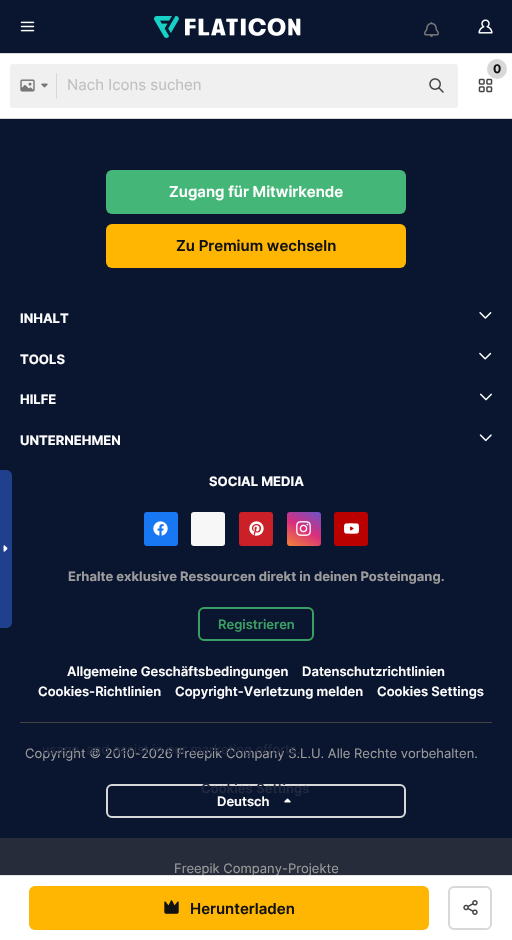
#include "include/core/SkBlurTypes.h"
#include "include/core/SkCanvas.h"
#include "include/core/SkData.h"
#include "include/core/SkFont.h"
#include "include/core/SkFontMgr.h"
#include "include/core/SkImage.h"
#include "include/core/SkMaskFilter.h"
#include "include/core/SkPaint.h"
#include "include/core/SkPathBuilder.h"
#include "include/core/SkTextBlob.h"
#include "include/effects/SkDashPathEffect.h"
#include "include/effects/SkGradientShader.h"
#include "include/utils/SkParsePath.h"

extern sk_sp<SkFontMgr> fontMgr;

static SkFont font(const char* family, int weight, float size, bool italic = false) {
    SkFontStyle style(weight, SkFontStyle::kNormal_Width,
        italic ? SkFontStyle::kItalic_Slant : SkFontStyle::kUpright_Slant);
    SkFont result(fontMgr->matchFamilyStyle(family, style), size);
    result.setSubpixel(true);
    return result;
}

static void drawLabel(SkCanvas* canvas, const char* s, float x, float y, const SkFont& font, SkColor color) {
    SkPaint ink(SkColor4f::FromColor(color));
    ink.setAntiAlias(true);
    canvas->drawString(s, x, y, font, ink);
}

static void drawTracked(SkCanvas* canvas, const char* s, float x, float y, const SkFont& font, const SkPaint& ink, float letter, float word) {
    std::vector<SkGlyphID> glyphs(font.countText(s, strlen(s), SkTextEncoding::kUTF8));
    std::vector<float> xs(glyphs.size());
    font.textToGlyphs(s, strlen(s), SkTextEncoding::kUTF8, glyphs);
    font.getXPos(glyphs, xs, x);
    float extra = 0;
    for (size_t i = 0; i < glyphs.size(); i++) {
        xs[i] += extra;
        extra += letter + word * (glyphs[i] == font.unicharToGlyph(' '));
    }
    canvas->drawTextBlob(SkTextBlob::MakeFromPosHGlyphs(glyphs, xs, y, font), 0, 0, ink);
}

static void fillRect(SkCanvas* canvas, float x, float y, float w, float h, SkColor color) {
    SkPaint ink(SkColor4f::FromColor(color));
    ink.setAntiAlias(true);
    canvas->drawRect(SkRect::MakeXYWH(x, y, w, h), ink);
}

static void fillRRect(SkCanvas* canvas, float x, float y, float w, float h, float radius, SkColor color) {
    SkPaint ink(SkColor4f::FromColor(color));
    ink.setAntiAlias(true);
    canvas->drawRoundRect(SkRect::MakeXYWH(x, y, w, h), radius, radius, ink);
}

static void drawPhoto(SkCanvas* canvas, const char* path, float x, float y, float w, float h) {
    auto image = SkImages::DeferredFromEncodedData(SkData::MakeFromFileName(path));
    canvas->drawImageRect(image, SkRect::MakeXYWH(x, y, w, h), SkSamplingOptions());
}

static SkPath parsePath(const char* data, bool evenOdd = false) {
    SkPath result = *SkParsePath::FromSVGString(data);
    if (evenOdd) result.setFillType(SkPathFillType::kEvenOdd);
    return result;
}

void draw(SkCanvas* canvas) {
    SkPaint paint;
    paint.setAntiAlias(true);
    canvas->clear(0xFF0A152F);
    paint.setColor(0xFF1F408C);
    canvas->drawPath(parsePath("M0 470H6C9.5 470 12 472.5 12 476V622C12 625.5 9.5 628 6 628H0Z"), paint);
    drawPhoto(canvas, "assets/img1.png", 3, 545, 5, 7);
    drawPhoto(canvas, "assets/img2.png", 20, 21, 15, 11);
    drawPhoto(canvas, "assets/img3.png", 154, 16, 147, 22);
    drawPhoto(canvas, "assets/img4.png", 424, 22, 15, 15);
    drawPhoto(canvas, "assets/img5.png", 478, 19, 15, 15);
    paint.setStroke(true);
    paint.setStrokeWidth(1);
    paint.setColor(0xFFD8D8D8);
    canvas->drawRect(SkRect::MakeXYWH(-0.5f, 53.5f, 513, 65), paint);
    fillRect(canvas, 0, 54, 512, 64, 0xFFFFFFFF);
    drawPhoto(canvas, "assets/img6.png", 478, 78, 15, 15);
    paint.setStroke(false);
    canvas->drawCircle(497, 69, 10, paint);
    SkFont font1 = font("Inter", 700, 12);
    drawLabel(canvas, "0", 493, 73, font1, 0xFF121212);
    fillRRect(canvas, 10, 64, 448, 44, 3, 0xFFF0F0F0);
    drawPhoto(canvas, "assets/img7.png", 20, 79, 15, 13);
    drawPhoto(canvas, "assets/img8.png", 41, 83, 7, 5);
    fillRect(canvas, 56, 73, 1, 26, 0xFFD8D8D8);
    SkFont font2 = font("Inter", 400, 15);
    drawLabel(canvas, "Nach Icons suchen", 67, 90, font2, 0xFFC0C0C0);
    drawPhoto(canvas, "assets/img9.png", 429, 78, 15, 15);
    fillRRect(canvas, 106, 170, 300, 44, 6, 0xFF44B678);
    SkFont font3 = font("Inter", 600, 15);
    drawLabel(canvas, "Zugang für Mitwirkende", 169, 197, font3, 0xFFFFFFFF);
    fillRRect(canvas, 106, 224, 300, 44, 6, 0xFFFEB602);
    drawLabel(canvas, "Zu Premium wechseln", 176, 251, font3, 0xFF121212);
    SkFont font4 = font("Inter", 700, 13);
    drawLabel(canvas, "INHALT", 20, 323, font4, 0xFFFFFFFF);
    drawPhoto(canvas, "assets/img10.png", 479, 312, 13, 7);
    drawLabel(canvas, "TOOLS", 20, 364, font4, 0xFFFFFFFF);
    drawPhoto(canvas, "assets/img11.png", 479, 352, 13, 8);
    drawLabel(canvas, "HILFE", 20, 404, font4, 0xFFFFFFFF);
    drawPhoto(canvas, "assets/img12.png", 480, 393, 12, 8);
    drawLabel(canvas, "UNTERNEHMEN", 20, 445, font4, 0xFFFFFFFF);
    drawPhoto(canvas, "assets/img13.png", 479, 434, 13, 8);
    drawLabel(canvas, "SOCIAL MEDIA", 209, 486, font4, 0xFFFFFFFF);
    fillRRect(canvas, 144, 512, 34, 34, 3, 0xFF1877F2);
    drawPhoto(canvas, "assets/img14.png", 153, 521, 15, 15);
    fillRRect(canvas, 191, 512, 34, 34, 3, 0xFFF7F7F7);
    fillRRect(canvas, 239, 512, 34, 34, 3, 0xFFCB2027);
    drawPhoto(canvas, "assets/img15.png", 249, 521, 15, 15);
    {
        const SkColor colors[] = {0xFFF38334, 0xFFDA2E7D, 0xFF6B54C6};
        const float stops[] = {0, 0.5f, 1};
        const SkPoint ends[] = {{293, 549}, {315, 509}};
        paint.setShader(SkGradientShader::MakeLinear(ends, colors, stops, 3, SkTileMode::kClamp));
        paint.setAlpha(255);
    }
    canvas->drawRoundRect(SkRect::MakeXYWH(287, 512, 34, 34), 3, 3, paint);
    drawPhoto(canvas, "assets/img16.png", 296, 521, 15, 15);
    fillRRect(canvas, 334, 512, 34, 34, 3, 0xFFBB0000);
    drawPhoto(canvas, "assets/img17.png", 344, 523, 15, 11);
    drawLabel(canvas, "Erhalte exklusive Ressourcen direkt in deinen Posteingang.", 68, 581, font4, 0xFF9C9C9C);
    paint.setStroke(true);
    paint.setStrokeWidth(2);
    paint.setShader(nullptr);
    paint.setColor(0xFF3B9E62);
    canvas->drawRoundRect(SkRect::MakeXYWH(199, 608, 114, 32), 5, 5, paint);
    SkFont font5 = font("Inter", 600, 13);
    drawLabel(canvas, "Registrieren", 218, 629, font5, 0xFF3B9E62);
    drawLabel(canvas, "Allgemeine Geschäftsbedingungen", 67, 676, font5, 0xFFFFFFFF);
    drawLabel(canvas, "Datenschutzrichtlinien", 302, 676, font5, 0xFFFFFFFF);
    drawLabel(canvas, "Cookies-Richtlinien", 38, 696, font5, 0xFFFFFFFF);
    drawLabel(canvas, "Copyright-Verletzung melden", 175, 696, font5, 0xFFFFFFFF);
    drawLabel(canvas, "Cookies Settings", 377, 696, font5, 0xFFFFFFFF);
    fillRect(canvas, 20, 722, 472, 1, 0xFF424242);
    SkFont font6 = font("Inter", 400, 13);
    drawLabel(canvas, "Copyright © 2010-2026 Freepik Company S.L.U. Alle Rechte vorbehalten.", 25, 758, font6, 0xFF9C9C9C);
    paint.setColor(0xFFD8D8D8);
    canvas->drawRoundRect(SkRect::MakeXYWH(107, 785, 298, 32), 5, 5, paint);
    drawLabel(canvas, "Deutsch", 217, 806, font5, 0xFFFFFFFF);
    drawPhoto(canvas, "assets/img18.png", 284, 798, 7, 5);
    fillRect(canvas, 0, 838, 512, 37, 0xFF262C39);
    drawLabel(canvas, "Freepik Company-Projekte", 174, 873, font6, 0xFF9C9C9C);
    fillRect(canvas, 0, 876, 512, 64, 0xFFFFFFFF);
    fillRect(canvas, 0, 875, 512, 1, 0xFFE5E5E5);
    fillRRect(canvas, 29, 886, 400, 44, 6, 0xFFFEB602);
    drawPhoto(canvas, "assets/img19.png", 164, 900, 15, 14);
    drawLabel(canvas, "Herunterladen", 190, 914, font3, 0xFF121212);
    canvas->drawRoundRect(SkRect::MakeXYWH(449, 887, 42, 42), 5, 5, paint);
    drawPhoto(canvas, "assets/img20.png", 463, 900, 15, 15);
    drawLabel(canvas, "usage, and assist in our marketing efforts.", 42, 754, font6, 0xFF202940);
    paint.setStroke(false);
    paint.setColor(0xFF202940);
    drawTracked(canvas, "Cookies Settings", 201, 793, font5, paint, 0.1f, 0);
}
